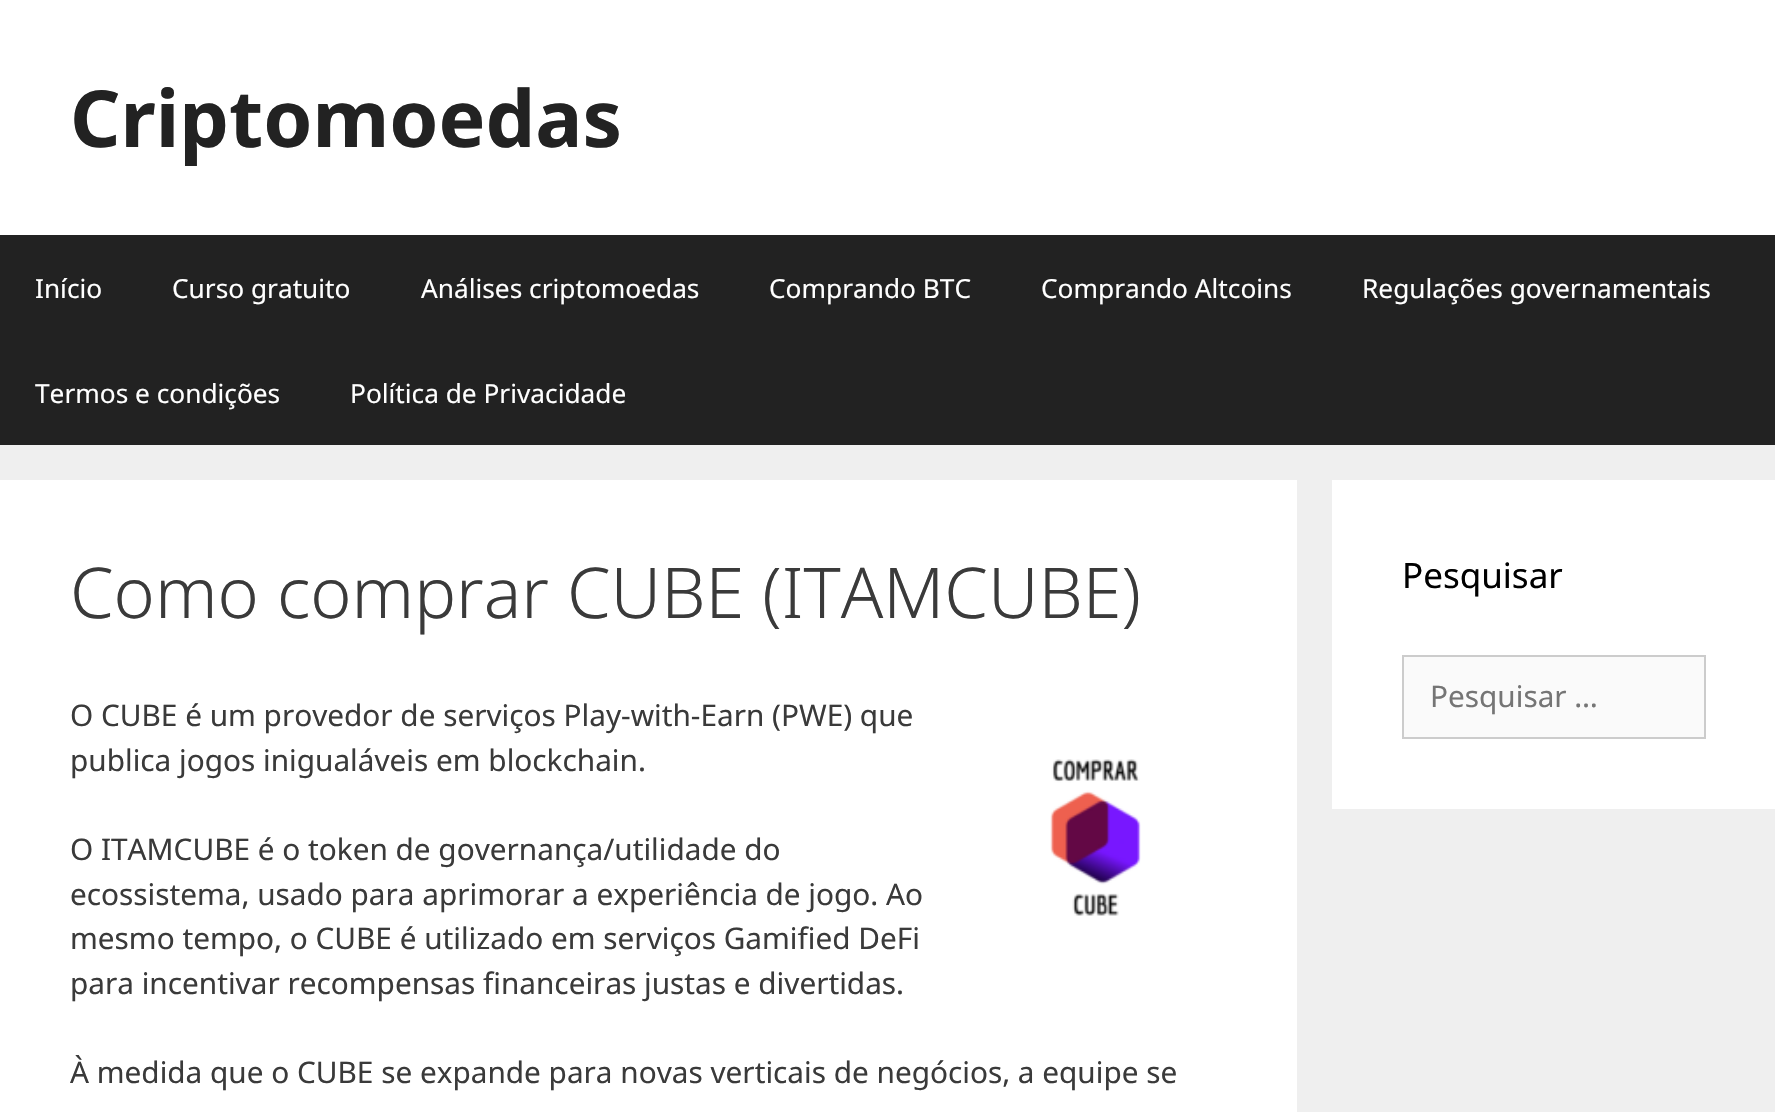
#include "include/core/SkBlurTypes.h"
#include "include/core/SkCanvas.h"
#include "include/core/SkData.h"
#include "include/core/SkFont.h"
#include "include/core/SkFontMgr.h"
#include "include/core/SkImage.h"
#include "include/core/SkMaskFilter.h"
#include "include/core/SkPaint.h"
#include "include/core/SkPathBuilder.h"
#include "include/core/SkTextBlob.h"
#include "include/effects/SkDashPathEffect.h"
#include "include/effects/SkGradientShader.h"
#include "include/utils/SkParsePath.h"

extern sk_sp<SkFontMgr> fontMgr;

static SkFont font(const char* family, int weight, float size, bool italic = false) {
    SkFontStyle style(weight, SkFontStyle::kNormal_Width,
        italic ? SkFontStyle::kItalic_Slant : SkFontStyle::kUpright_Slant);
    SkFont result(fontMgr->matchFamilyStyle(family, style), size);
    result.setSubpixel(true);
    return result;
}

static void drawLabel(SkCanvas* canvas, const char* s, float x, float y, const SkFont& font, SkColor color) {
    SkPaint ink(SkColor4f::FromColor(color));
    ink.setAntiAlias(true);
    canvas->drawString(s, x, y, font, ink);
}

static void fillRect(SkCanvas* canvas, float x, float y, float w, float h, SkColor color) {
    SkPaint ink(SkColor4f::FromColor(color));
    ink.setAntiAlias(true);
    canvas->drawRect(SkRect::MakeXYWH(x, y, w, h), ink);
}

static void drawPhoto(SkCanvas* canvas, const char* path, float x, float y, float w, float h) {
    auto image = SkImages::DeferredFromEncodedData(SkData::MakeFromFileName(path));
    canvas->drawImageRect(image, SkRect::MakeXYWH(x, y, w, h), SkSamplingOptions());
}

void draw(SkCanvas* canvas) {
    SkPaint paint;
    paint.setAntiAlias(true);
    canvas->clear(0xFFEFEFEF);
    fillRect(canvas, 0, 0, 1775, 235, 0xFFFFFFFF);
    SkFont font1 = font("Noto Sans", 700, 78.75f);
    drawLabel(canvas, "Criptomoedas", 70, 147, font1, 0xFF222222);
    fillRect(canvas, 0, 235, 1775, 210, 0xFF222222);
    SkFont font2 = font("Noto Sans", 400, 26.25f);
    drawLabel(canvas, "Início", 35, 298, font2, 0xFFFFFFFF);
    drawLabel(canvas, "Curso gratuito", 172, 298, font2, 0xFFFFFFFF);
    drawLabel(canvas, "Análises criptomoedas", 421, 298, font2, 0xFFFFFFFF);
    drawLabel(canvas, "Comprando BTC", 769, 298, font2, 0xFFFFFFFF);
    drawLabel(canvas, "Comprando Altcoins", 1041, 298, font2, 0xFFFFFFFF);
    drawLabel(canvas, "Regulações governamentais", 1362, 298, font2, 0xFFFFFFFF);
    drawLabel(canvas, "Termos e condições", 35, 403, font2, 0xFFFFFFFF);
    drawLabel(canvas, "Política de Privacidade", 350, 403, font2, 0xFFFFFFFF);
    fillRect(canvas, 0, 480, 1297, 632, 0xFFFFFFFF);
    SkFont font3 = font("Noto Sans", 300, 70);
    drawLabel(canvas, "Como comprar CUBE (ITAMCUBE)", 70, 618, font3, 0xFF3A3A3A);
    SkFont font4 = font("Noto Sans", 400, 29.75f);
    drawLabel(canvas, "O CUBE é um provedor de serviços Play-with-Earn (PWE) que", 70, 726, font4, 0xFF3A3A3A);
    drawLabel(canvas, "publica jogos inigualáveis em blockchain.", 70, 771, font4, 0xFF3A3A3A);
    drawLabel(canvas, "O ITAMCUBE é o token de governança/utilidade do", 70, 860, font4, 0xFF3A3A3A);
    drawLabel(canvas, "ecossistema, usado para aprimorar a experiência de jogo. Ao", 70, 905, font4, 0xFF3A3A3A);
    drawLabel(canvas, "mesmo tempo, o CUBE é utilizado em serviços Gamified DeFi", 70, 949, font4, 0xFF3A3A3A);
    drawLabel(canvas, "para incentivar recompensas financeiras justas e divertidas.", 70, 994, font4, 0xFF3A3A3A);
    drawPhoto(canvas, "assets/img1.png", 1050, 759, 91, 157);
    drawLabel(canvas, "À medida que o CUBE se expande para novas verticais de negócios, a equipe se", 70, 1083, font4, 0xFF3A3A3A);
    fillRect(canvas, 1332, 480, 443, 329, 0xFFFFFFFF);
    SkFont font5 = font("Noto Sans", 400, 35);
    drawLabel(canvas, "Pesquisar", 1402, 588, font5, 0xFF000000);
    paint.setColor(0xFFFAFAFA);
    canvas->drawRect(SkRect::MakeXYWH(1403, 656, 302, 82), paint);
    paint.setStroke(true);
    paint.setStrokeWidth(2);
    paint.setColor(0xFFCCCCCC);
    canvas->drawRect(SkRect::MakeXYWH(1403, 656, 302, 82), paint);
    drawLabel(canvas, "Pesquisar …", 1430, 707, font4, 0xFF757575);
}
